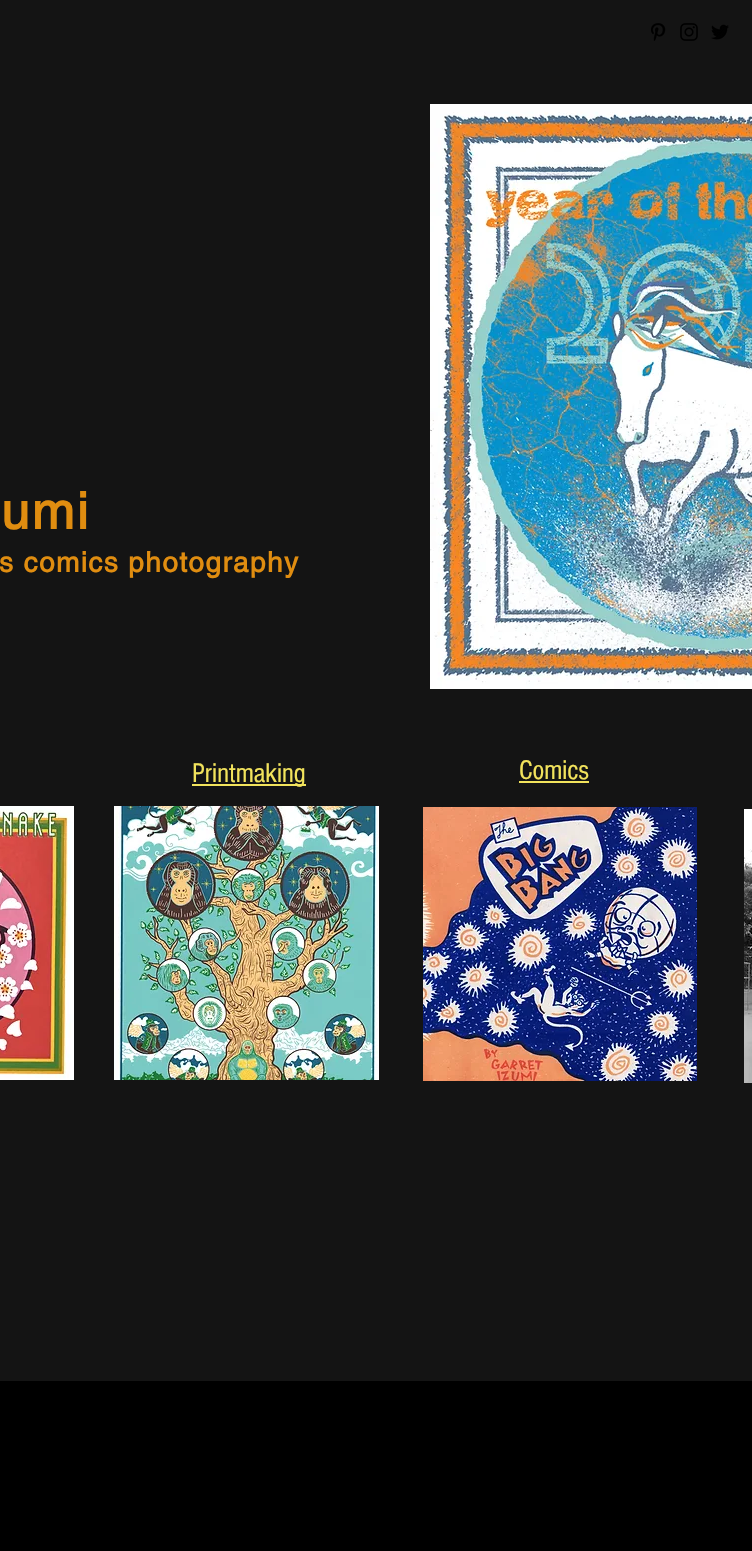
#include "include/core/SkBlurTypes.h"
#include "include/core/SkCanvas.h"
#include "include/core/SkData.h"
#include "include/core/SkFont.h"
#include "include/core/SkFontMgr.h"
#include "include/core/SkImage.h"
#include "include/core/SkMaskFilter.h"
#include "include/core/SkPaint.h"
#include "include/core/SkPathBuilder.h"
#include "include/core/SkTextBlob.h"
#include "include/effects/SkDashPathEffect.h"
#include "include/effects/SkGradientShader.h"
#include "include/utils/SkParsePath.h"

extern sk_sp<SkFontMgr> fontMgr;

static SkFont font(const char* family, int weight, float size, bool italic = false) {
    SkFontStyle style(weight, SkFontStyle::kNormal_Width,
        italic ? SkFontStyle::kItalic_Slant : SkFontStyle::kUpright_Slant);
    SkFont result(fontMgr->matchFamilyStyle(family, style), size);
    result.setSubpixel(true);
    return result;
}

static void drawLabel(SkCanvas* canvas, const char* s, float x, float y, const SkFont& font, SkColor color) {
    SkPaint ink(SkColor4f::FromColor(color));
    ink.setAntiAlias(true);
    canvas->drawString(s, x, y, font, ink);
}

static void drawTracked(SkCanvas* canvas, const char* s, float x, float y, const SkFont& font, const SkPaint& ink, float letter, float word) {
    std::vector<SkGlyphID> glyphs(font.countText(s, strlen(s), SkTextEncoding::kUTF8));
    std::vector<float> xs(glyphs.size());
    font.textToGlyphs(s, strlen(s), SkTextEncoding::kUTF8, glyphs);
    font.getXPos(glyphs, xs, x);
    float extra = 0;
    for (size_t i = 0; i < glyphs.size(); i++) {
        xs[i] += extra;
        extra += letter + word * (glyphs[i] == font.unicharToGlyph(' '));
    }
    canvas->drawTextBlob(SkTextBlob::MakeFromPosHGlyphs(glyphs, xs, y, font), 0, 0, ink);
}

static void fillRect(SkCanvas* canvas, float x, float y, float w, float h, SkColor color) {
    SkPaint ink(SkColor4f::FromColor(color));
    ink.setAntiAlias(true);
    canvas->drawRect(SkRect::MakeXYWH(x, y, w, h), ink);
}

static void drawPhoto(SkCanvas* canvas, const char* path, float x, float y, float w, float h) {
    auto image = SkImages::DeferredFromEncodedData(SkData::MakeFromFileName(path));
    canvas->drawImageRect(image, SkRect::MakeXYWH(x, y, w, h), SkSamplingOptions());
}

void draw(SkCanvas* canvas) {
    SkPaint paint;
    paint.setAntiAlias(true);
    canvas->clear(0xFF000000);
    fillRect(canvas, 0, 0, 752, 1381, 0xFF141414);
    drawPhoto(canvas, "assets/img1.png", 651, 23, 15, 18);
    drawPhoto(canvas, "assets/img2.png", 680, 23, 18, 18);
    drawPhoto(canvas, "assets/img3.png", 711, 24, 18, 16);
    SkFont font1 = font("helvetica", 700, 51);
    paint.setColor(0xFFE08D10);
    drawTracked(canvas, "umi", 1, 529, font1, paint, 2.5f, 0);
    SkFont font2 = font("helvetica", 700, 28);
    drawTracked(canvas, "s comics photography", -1, 572, font2, paint, 1.4f, 0);
    drawPhoto(canvas, "assets/img4.png", 430, 104, 322, 585);
    SkFont font3 = font("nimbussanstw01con", 400, 28);
    drawLabel(canvas, "Comics", 519, 779, font3, 0xFFF2E35C);
    fillRect(canvas, 519, 781, 70, 2, 0xFFF2E35C);
    fillRect(canvas, 192, 784, 114, 2, 0xFFF2E35C);
    drawLabel(canvas, "Printmaking", 192, 782, font3, 0xFFF2E35C);
    drawPhoto(canvas, "assets/img5.png", 0, 806, 74, 274);
    drawPhoto(canvas, "assets/img6.png", 114, 806, 265, 274);
    drawPhoto(canvas, "assets/img7.png", 423, 807, 274, 274);
    drawPhoto(canvas, "assets/img8.png", 744, 809, 8, 274);
}
